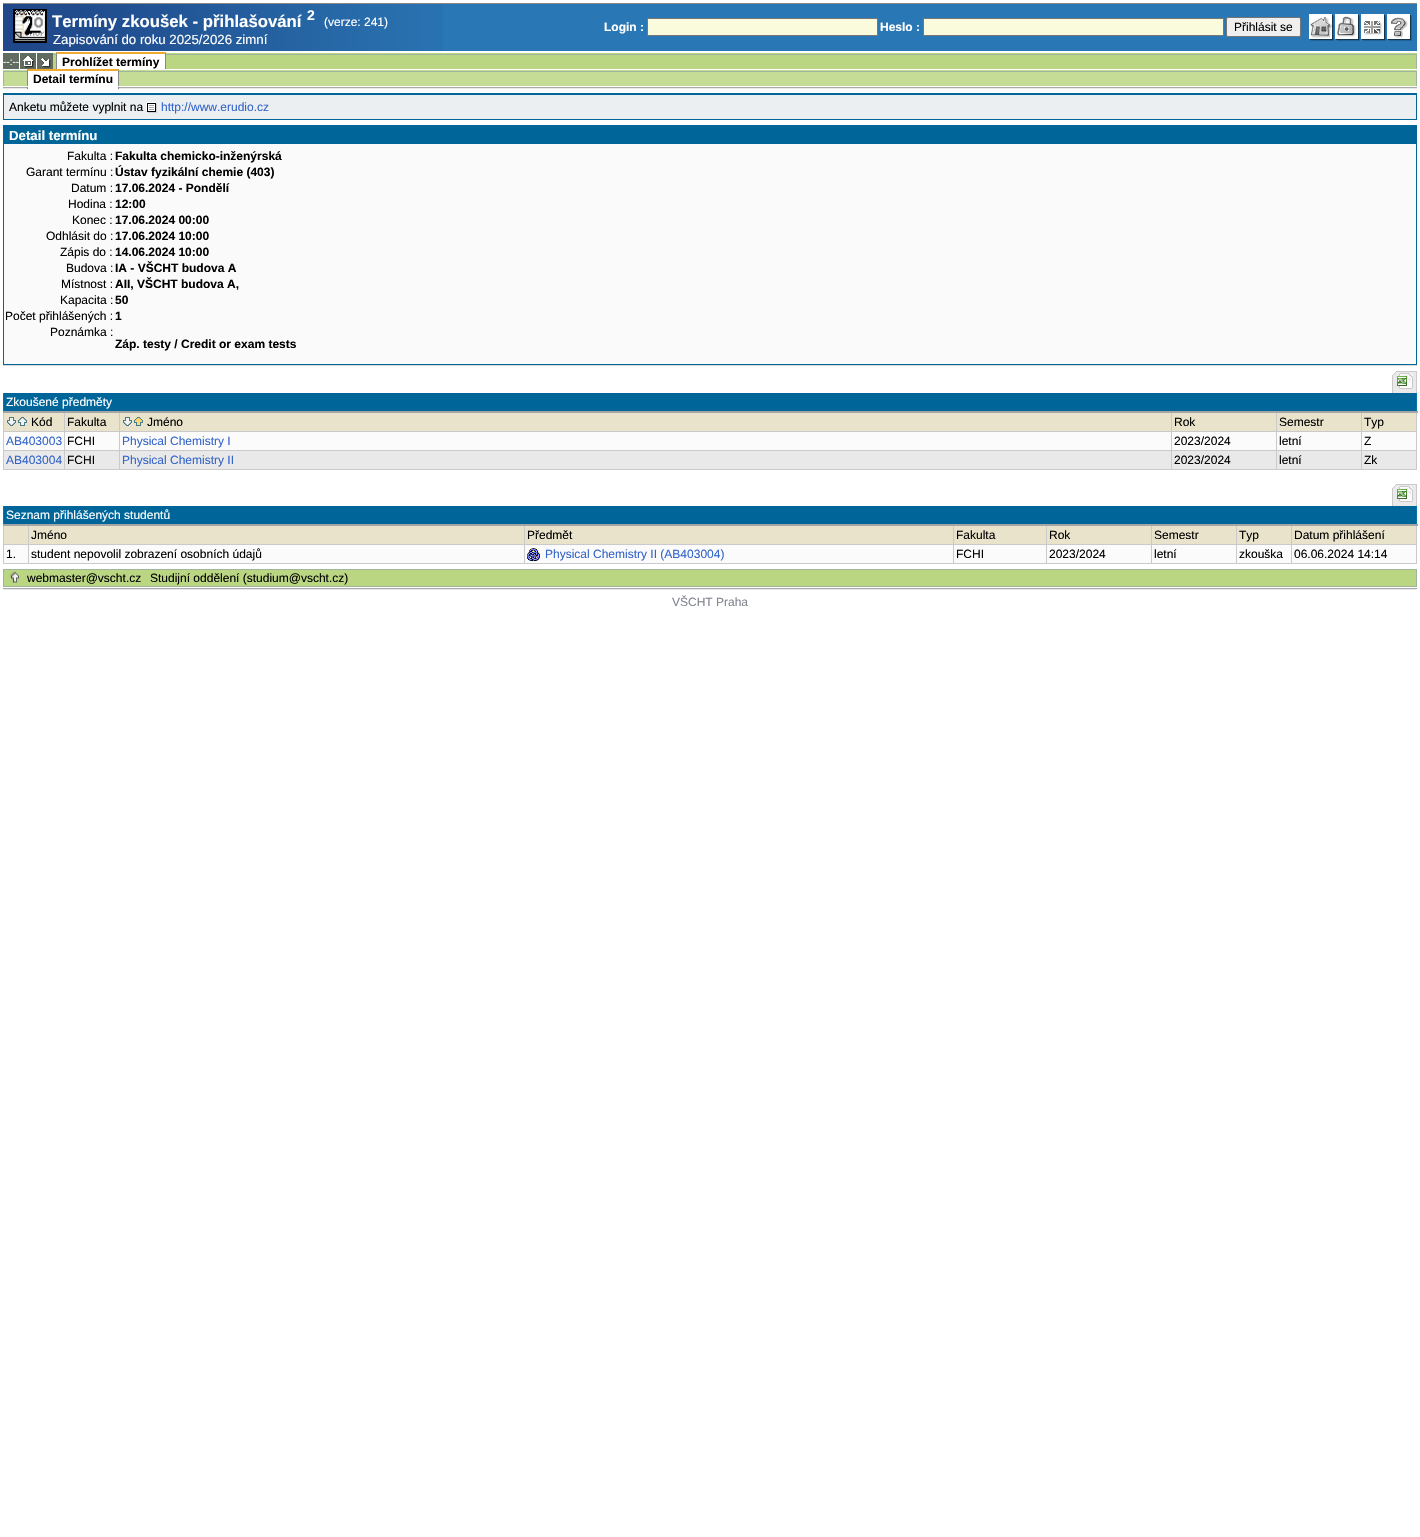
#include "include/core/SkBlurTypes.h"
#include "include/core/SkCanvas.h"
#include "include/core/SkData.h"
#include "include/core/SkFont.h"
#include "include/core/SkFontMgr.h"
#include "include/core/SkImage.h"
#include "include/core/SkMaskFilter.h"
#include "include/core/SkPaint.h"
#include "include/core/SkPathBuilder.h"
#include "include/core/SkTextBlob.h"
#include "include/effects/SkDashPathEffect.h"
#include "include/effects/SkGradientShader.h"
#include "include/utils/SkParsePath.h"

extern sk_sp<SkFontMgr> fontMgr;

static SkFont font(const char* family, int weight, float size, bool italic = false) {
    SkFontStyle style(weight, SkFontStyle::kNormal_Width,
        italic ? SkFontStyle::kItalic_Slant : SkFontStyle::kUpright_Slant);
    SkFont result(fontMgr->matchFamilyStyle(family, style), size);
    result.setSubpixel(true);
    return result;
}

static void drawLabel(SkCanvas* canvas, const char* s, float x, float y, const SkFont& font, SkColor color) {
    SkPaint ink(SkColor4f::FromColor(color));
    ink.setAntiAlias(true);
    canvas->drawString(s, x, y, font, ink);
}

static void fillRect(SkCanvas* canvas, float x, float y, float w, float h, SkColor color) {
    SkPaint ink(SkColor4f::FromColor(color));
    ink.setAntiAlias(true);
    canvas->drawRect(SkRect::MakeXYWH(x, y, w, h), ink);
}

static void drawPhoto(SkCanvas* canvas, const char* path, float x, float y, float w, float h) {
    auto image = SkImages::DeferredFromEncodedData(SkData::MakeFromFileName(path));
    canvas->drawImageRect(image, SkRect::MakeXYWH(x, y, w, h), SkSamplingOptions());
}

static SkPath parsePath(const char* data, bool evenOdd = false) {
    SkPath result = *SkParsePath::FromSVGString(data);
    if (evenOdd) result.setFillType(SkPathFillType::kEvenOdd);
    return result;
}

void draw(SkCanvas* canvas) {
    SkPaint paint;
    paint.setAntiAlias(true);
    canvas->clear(0xFFFFFFFF);
    fillRect(canvas, 443, 4, 974, 47, 0xFF2A77B5);
    drawPhoto(canvas, "assets/img1.png", 3, 4, 440, 47);
    fillRect(canvas, 3, 3, 1414, 1, 0xFF888888);
    paint.setStroke(true);
    paint.setStrokeWidth(1);
    paint.setColor(0xFF000000);
    canvas->drawRect(SkRect::MakeXYWH(13.5f, 9.5f, 33, 33), paint);
    drawPhoto(canvas, "assets/img2.png", 14, 10, 32, 32);
    SkFont font1 = font("Liberation Sans", 700, 16.75f);
    drawLabel(canvas, "Termíny zkoušek - přihlašování", 52, 27, font1, 0xFFFFFFFF);
    SkFont font2 = font("Liberation Sans", 700, 14);
    drawLabel(canvas, "2", 307, 20, font2, 0xFFFFFFFF);
    SkFont font3 = font("Liberation Sans", 400, 12);
    drawLabel(canvas, "(verze: 241)", 324, 26, font3, 0xFFFFFFFF);
    SkFont font4 = font("Liberation Sans", 400, 13.25f);
    drawLabel(canvas, "Zapisování do roku 2025/2026 zimní", 53, 44, font4, 0xFFFFFFFF);
    SkFont font5 = font("Liberation Sans", 700, 12);
    drawLabel(canvas, "Login :", 604, 31, font5, 0xFFFFFFFF);
    paint.setStroke(false);
    paint.setColor(0xFFFAFADC);
    canvas->drawRect(SkRect::MakeXYWH(647.5f, 18.5f, 230, 17), paint);
    paint.setStroke(true);
    paint.setColor(0xFF777777);
    canvas->drawRect(SkRect::MakeXYWH(647.5f, 18.5f, 230, 17), paint);
    drawLabel(canvas, "Heslo :", 880, 31, font5, 0xFFFFFFFF);
    paint.setStroke(false);
    paint.setColor(0xFFFAFADC);
    canvas->drawRect(SkRect::MakeXYWH(923.5f, 18.5f, 300, 17), paint);
    paint.setStroke(true);
    paint.setColor(0xFF777777);
    canvas->drawRect(SkRect::MakeXYWH(923.5f, 18.5f, 300, 17), paint);
    paint.setStroke(false);
    paint.setColor(0xFFEFEFEF);
    canvas->drawRoundRect(SkRect::MakeXYWH(1226.5f, 17.5f, 74, 19), 1.5f, 1.5f, paint);
    paint.setStroke(true);
    paint.setColor(0xFF767676);
    canvas->drawRoundRect(SkRect::MakeXYWH(1226.5f, 17.5f, 74, 19), 1.5f, 1.5f, paint);
    drawLabel(canvas, "Přihlásit se", 1234, 31, font3, 0xFF000000);
    drawPhoto(canvas, "assets/img3.png", 1309, 14, 25, 27);
    drawPhoto(canvas, "assets/img4.png", 1335, 14, 25, 27);
    drawPhoto(canvas, "assets/img5.png", 1361, 14, 25, 27);
    drawPhoto(canvas, "assets/img6.png", 1387, 14, 25, 27);
    fillRect(canvas, 53, 52, 1364, 17, 0xFFBAD683);
    fillRect(canvas, 3, 53, 16, 16, 0xFF616B60);
    SkFont font6 = font("Liberation Sans", 400, 10);
    drawLabel(canvas, "--:--", 3, 65, font6, 0xFFFFFFFF);
    fillRect(canvas, 20, 53, 16, 16, 0xFF616B60);
    drawPhoto(canvas, "assets/img7.png", 23, 56, 12, 12);
    fillRect(canvas, 37, 53, 16, 16, 0xFF616B60);
    drawPhoto(canvas, "assets/img8.png", 41, 58, 10, 10);
    fillRect(canvas, 53, 52, 3, 1, 0xFFFFFFFF);
    fillRect(canvas, 53, 54, 3, 1, 0xFF9EB69B);
    paint.setStroke(false);
    paint.setColor(0xFFF2A92F);
    canvas->drawPath(parsePath("M56 52H166L165 54H57Z"), paint);
    paint.setColor(0xFF888888);
    canvas->drawPath(parsePath("M166 52V69H165V54Z"), paint);
    canvas->drawPath(parsePath("M56 69V52L57 54V69Z"), paint);
    fillRect(canvas, 57, 54, 108, 15, 0xFFFFFFFF);
    drawLabel(canvas, "Prohlížet termíny", 62, 66, font5, 0xFF000000);
    fillRect(canvas, 166, 52, 1251, 1, 0xFFFFFFFF);
    fillRect(canvas, 166, 54, 1251, 1, 0xFF9EB69B);
    fillRect(canvas, 1416, 54, 1, 15, 0xFF9EB69B);
    fillRect(canvas, 3, 69, 1414, 17, 0xFFC4DC95);
    fillRect(canvas, 3, 69, 24, 1, 0xFFFFFFFF);
    fillRect(canvas, 3, 71, 24, 1, 0xFF9EB69B);
    fillRect(canvas, 3, 71, 1, 15, 0xFF9EB69B);
    paint.setColor(0xFFF2A92F);
    canvas->drawPath(parsePath("M27 69H119L118 71H28Z"), paint);
    paint.setColor(0xFF888888);
    canvas->drawPath(parsePath("M119 69V86H118V71Z"), paint);
    canvas->drawPath(parsePath("M27 86V69L28 71V86Z"), paint);
    fillRect(canvas, 28, 71, 90, 15, 0xFFFFFFFF);
    drawLabel(canvas, "Detail termínu", 33, 83, font5, 0xFF000000);
    fillRect(canvas, 119, 69, 1298, 1, 0xFFFFFFFF);
    fillRect(canvas, 119, 71, 1298, 1, 0xFF9EB69B);
    fillRect(canvas, 1416, 71, 1, 15, 0xFF9EB69B);
    drawPhoto(canvas, "assets/img9.png", 3, 87, 24, 2);
    fillRect(canvas, 118, 87, 1, 2, 0xFF888888);
    fillRect(canvas, 27, 87, 1, 2, 0xFF888888);
    drawPhoto(canvas, "assets/img10.png", 119, 87, 1298, 2);
    fillRect(canvas, 4, 95, 1412, 24, 0xFFECEFF1);
    fillRect(canvas, 3, 93, 1414, 2, 0xFF006699);
    fillRect(canvas, 1416, 93, 1, 27, 0xFF006699);
    fillRect(canvas, 3, 119, 1414, 1, 0xFF006699);
    fillRect(canvas, 3, 93, 1, 27, 0xFF006699);
    drawLabel(canvas, "Anketu můžete vyplnit na", 9, 111, font3, 0xFF000000);
    drawPhoto(canvas, "assets/img11.png", 146, 102, 11, 11);
    drawLabel(canvas, "http://www.erudio.cz", 161, 111, font3, 0xFF3364CA);
    fillRect(canvas, 4, 144, 1412, 220, 0xFFFAFAFA);
    fillRect(canvas, 3, 125, 1414, 2, 0xFF006699);
    fillRect(canvas, 1416, 125, 1, 240, 0xFF006699);
    fillRect(canvas, 3, 364, 1414, 1, 0xFF006699);
    fillRect(canvas, 3, 125, 1, 240, 0xFF006699);
    fillRect(canvas, 4, 127, 1412, 17, 0xFF006699);
    SkFont font7 = font("Liberation Sans", 700, 13.25f);
    drawLabel(canvas, "Detail termínu", 9, 140, font7, 0xFFFFFFFF);
    drawLabel(canvas, "Fakulta :", 67, 160, font3, 0xFF000000);
    drawLabel(canvas, "Fakulta chemicko-inženýrská", 115, 160, font5, 0xFF000000);
    drawLabel(canvas, "Garant termínu :", 26, 176, font3, 0xFF000000);
    drawLabel(canvas, "Ústav fyzikální chemie (403)", 115, 176, font5, 0xFF000000);
    drawLabel(canvas, "Datum :", 71, 192, font3, 0xFF000000);
    drawLabel(canvas, "17.06.2024 - Pondělí", 115, 192, font5, 0xFF000000);
    drawLabel(canvas, "Hodina :", 68, 208, font3, 0xFF000000);
    drawLabel(canvas, "12:00", 115, 208, font5, 0xFF000000);
    drawLabel(canvas, "Konec :", 72, 224, font3, 0xFF000000);
    drawLabel(canvas, "17.06.2024 00:00", 115, 224, font5, 0xFF000000);
    drawLabel(canvas, "Odhlásit do :", 46, 240, font3, 0xFF000000);
    drawLabel(canvas, "17.06.2024 10:00", 115, 240, font5, 0xFF000000);
    drawLabel(canvas, "Zápis do :", 60, 256, font3, 0xFF000000);
    drawLabel(canvas, "14.06.2024 10:00", 115, 256, font5, 0xFF000000);
    drawLabel(canvas, "Budova :", 66, 272, font3, 0xFF000000);
    drawLabel(canvas, "IA - VŠCHT budova A", 115, 272, font5, 0xFF000000);
    drawLabel(canvas, "Místnost :", 61, 288, font3, 0xFF000000);
    drawLabel(canvas, "AII, VŠCHT budova A,", 115, 288, font5, 0xFF000000);
    drawLabel(canvas, "Kapacita :", 60, 304, font3, 0xFF000000);
    drawLabel(canvas, "50", 115, 304, font5, 0xFF000000);
    drawLabel(canvas, "Počet přihlášených :", 5, 320, font3, 0xFF000000);
    drawLabel(canvas, "1", 115, 320, font5, 0xFF000000);
    drawLabel(canvas, "Poznámka :", 50, 336, font3, 0xFF000000);
    drawLabel(canvas, "Záp. testy / Credit or exam tests", 115, 348, font5, 0xFF000000);
    fillRect(canvas, 3, 365, 1414, 1, 0xFFDADADA);
    drawPhoto(canvas, "assets/img12.png", 1392, 372, 4, 21);
    fillRect(canvas, 1396, 372, 20, 21, 0xFFEAEAEA);
    fillRect(canvas, 1396, 371, 21, 1, 0xFFCACACA);
    fillRect(canvas, 1416, 371, 1, 22, 0xFFCACACA);
    drawPhoto(canvas, "assets/img13.png", 1397, 373, 16, 16);
    fillRect(canvas, 4, 393, 1412, 18, 0xFF006699);
    fillRect(canvas, 3, 431, 1414, 1, 0xFFCACACA);
    fillRect(canvas, 3, 450, 1414, 1, 0xFFCACACA);
    fillRect(canvas, 1416, 450, 1, 20, 0xFFCACACA);
    fillRect(canvas, 1416, 412, 1, 39, 0xFFCACACA);
    fillRect(canvas, 1416, 393, 1, 20, 0xFF0077AA);
    fillRect(canvas, 3, 469, 1414, 1, 0xFFCACACA);
    fillRect(canvas, 3, 450, 1, 20, 0xFFCACACA);
    fillRect(canvas, 3, 412, 1, 39, 0xFFCACACA);
    fillRect(canvas, 3, 393, 1, 20, 0xFF0077AA);
    fillRect(canvas, 4, 413, 1412, 18, 0xFFEAE3CC);
    fillRect(canvas, 4, 432, 1412, 18, 0xFFFBFBFB);
    fillRect(canvas, 4, 451, 1412, 18, 0xFFE9E9E9);
    fillRect(canvas, 64, 412, 1, 58, 0xFFCACACA);
    fillRect(canvas, 119, 412, 1, 58, 0xFFCACACA);
    fillRect(canvas, 1171, 412, 1, 58, 0xFFCACACA);
    fillRect(canvas, 1276, 412, 1, 58, 0xFFCACACA);
    fillRect(canvas, 1361, 412, 1, 58, 0xFFCACACA);
    fillRect(canvas, 3, 411, 1415, 2, 0xFFA5A5A5);
    drawLabel(canvas, "Zkoušené předměty", 6, 406, font3, 0xFFFFFFFF);
    drawPhoto(canvas, "assets/img14.png", 7, 417, 9, 9);
    drawPhoto(canvas, "assets/img15.png", 18, 417, 9, 9);
    drawLabel(canvas, "Kód", 31, 426, font3, 0xFF000000);
    drawLabel(canvas, "Fakulta", 67, 426, font3, 0xFF000000);
    drawPhoto(canvas, "assets/img14.png", 123, 417, 9, 9);
    drawPhoto(canvas, "assets/img16.png", 134, 417, 9, 9);
    drawLabel(canvas, "Jméno", 147, 426, font3, 0xFF000000);
    drawLabel(canvas, "Rok", 1174, 426, font3, 0xFF000000);
    drawLabel(canvas, "Semestr", 1279, 426, font3, 0xFF000000);
    drawLabel(canvas, "Typ", 1364, 426, font3, 0xFF000000);
    drawLabel(canvas, "AB403003", 6, 445, font3, 0xFF3364CA);
    drawLabel(canvas, "FCHI", 67, 445, font3, 0xFF000000);
    drawLabel(canvas, "Physical Chemistry I", 122, 445, font3, 0xFF3364CA);
    drawLabel(canvas, "2023/2024", 1174, 445, font3, 0xFF000000);
    drawLabel(canvas, "letní", 1279, 445, font3, 0xFF000000);
    drawLabel(canvas, "Z", 1364, 445, font3, 0xFF000000);
    drawLabel(canvas, "AB403004", 6, 464, font3, 0xFF3364CA);
    drawLabel(canvas, "FCHI", 67, 464, font3, 0xFF000000);
    drawLabel(canvas, "Physical Chemistry II", 122, 464, font3, 0xFF3364CA);
    drawLabel(canvas, "2023/2024", 1174, 464, font3, 0xFF000000);
    drawLabel(canvas, "letní", 1279, 464, font3, 0xFF000000);
    drawLabel(canvas, "Zk", 1364, 464, font3, 0xFF000000);
    drawPhoto(canvas, "assets/img12.png", 1392, 485, 4, 21);
    fillRect(canvas, 1396, 485, 20, 21, 0xFFEAEAEA);
    fillRect(canvas, 1396, 484, 21, 1, 0xFFCACACA);
    fillRect(canvas, 1416, 484, 1, 22, 0xFFCACACA);
    drawPhoto(canvas, "assets/img13.png", 1397, 486, 16, 16);
    fillRect(canvas, 4, 506, 1412, 18, 0xFF006699);
    fillRect(canvas, 3, 544, 1414, 1, 0xFFCACACA);
    fillRect(canvas, 1416, 525, 1, 39, 0xFFCACACA);
    fillRect(canvas, 1416, 506, 1, 20, 0xFF0077AA);
    fillRect(canvas, 3, 563, 1414, 1, 0xFFCACACA);
    fillRect(canvas, 3, 525, 1, 39, 0xFFCACACA);
    fillRect(canvas, 3, 506, 1, 20, 0xFF0077AA);
    fillRect(canvas, 4, 526, 1412, 18, 0xFFEAE3CC);
    fillRect(canvas, 4, 545, 1412, 18, 0xFFFBFBFB);
    fillRect(canvas, 28, 525, 1, 39, 0xFFCACACA);
    fillRect(canvas, 524, 525, 1, 39, 0xFFCACACA);
    fillRect(canvas, 953, 525, 1, 39, 0xFFCACACA);
    fillRect(canvas, 1046, 525, 1, 39, 0xFFCACACA);
    fillRect(canvas, 1151, 525, 1, 39, 0xFFCACACA);
    fillRect(canvas, 1236, 525, 1, 39, 0xFFCACACA);
    fillRect(canvas, 1291, 525, 1, 39, 0xFFCACACA);
    fillRect(canvas, 3, 524, 1415, 2, 0xFFA5A5A5);
    drawLabel(canvas, "Seznam přihlášených studentů", 6, 519, font3, 0xFFFFFFFF);
    drawLabel(canvas, "Jméno", 31, 539, font3, 0xFF000000);
    drawLabel(canvas, "Předmět", 527, 539, font3, 0xFF000000);
    drawLabel(canvas, "Fakulta", 956, 539, font3, 0xFF000000);
    drawLabel(canvas, "Rok", 1049, 539, font3, 0xFF000000);
    drawLabel(canvas, "Semestr", 1154, 539, font3, 0xFF000000);
    drawLabel(canvas, "Typ", 1239, 539, font3, 0xFF000000);
    drawLabel(canvas, "Datum přihlášení", 1294, 539, font3, 0xFF000000);
    drawLabel(canvas, "1.", 6, 558, font3, 0xFF000000);
    drawLabel(canvas, "student nepovolil zobrazení osobních údajů", 31, 558, font3, 0xFF000000);
    drawPhoto(canvas, "assets/img17.png", 527, 548, 13, 13);
    drawLabel(canvas, "Physical Chemistry II (AB403004)", 545, 558, font3, 0xFF3364CA);
    drawLabel(canvas, "FCHI", 956, 558, font3, 0xFF000000);
    drawLabel(canvas, "2023/2024", 1049, 558, font3, 0xFF000000);
    drawLabel(canvas, "letní", 1154, 558, font3, 0xFF000000);
    drawLabel(canvas, "zkouška", 1239, 558, font3, 0xFF000000);
    drawLabel(canvas, "06.06.2024 14:14", 1294, 558, font3, 0xFF000000);
    paint.setStroke(true);
    paint.setColor(0xFF9EB69B);
    canvas->drawRect(SkRect::MakeXYWH(3.5f, 569.5f, 1413, 17), paint);
    fillRect(canvas, 4, 570, 1412, 16, 0xFFBAD683);
    drawPhoto(canvas, "assets/img18.png", 9, 571, 10, 12);
    drawLabel(canvas, "webmaster@vscht.cz", 27, 582, font3, 0xFF000000);
    drawLabel(canvas, "Studijní oddělení (studium@vscht.cz)", 150, 582, font3, 0xFF000000);
    drawPhoto(canvas, "assets/img19.png", 3, 588, 1414, 2);
    drawLabel(canvas, "VŠCHT Praha", 672, 606, font3, 0xFF828490);
}
